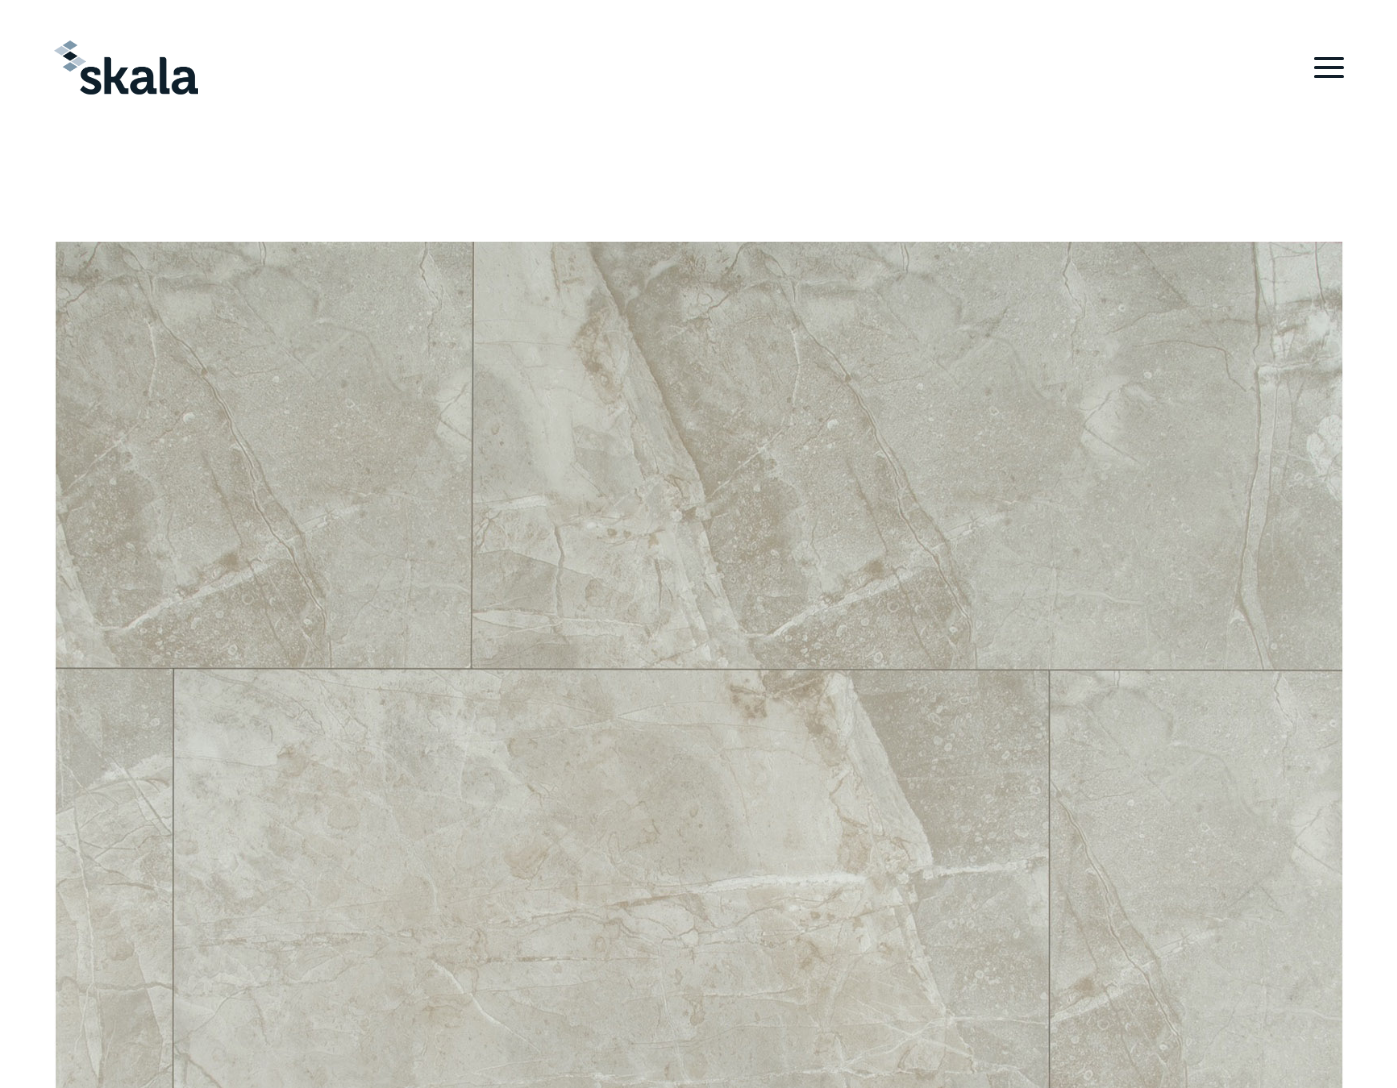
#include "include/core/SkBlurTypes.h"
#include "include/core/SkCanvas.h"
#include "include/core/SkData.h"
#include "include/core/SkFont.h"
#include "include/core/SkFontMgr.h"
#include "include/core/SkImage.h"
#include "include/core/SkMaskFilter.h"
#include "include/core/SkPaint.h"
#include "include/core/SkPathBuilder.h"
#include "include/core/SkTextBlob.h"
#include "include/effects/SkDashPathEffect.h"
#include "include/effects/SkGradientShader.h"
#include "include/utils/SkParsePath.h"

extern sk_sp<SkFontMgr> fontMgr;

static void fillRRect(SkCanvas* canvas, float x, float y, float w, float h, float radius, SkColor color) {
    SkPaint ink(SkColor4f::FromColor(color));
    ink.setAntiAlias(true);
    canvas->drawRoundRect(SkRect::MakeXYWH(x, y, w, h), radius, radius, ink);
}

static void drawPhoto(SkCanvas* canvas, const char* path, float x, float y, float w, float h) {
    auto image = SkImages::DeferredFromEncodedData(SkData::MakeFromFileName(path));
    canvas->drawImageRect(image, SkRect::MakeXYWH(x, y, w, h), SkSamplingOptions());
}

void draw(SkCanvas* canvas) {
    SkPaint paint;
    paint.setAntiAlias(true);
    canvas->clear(0xFFFFFFFF);
    drawPhoto(canvas, "assets/img1.png", 54, 40, 144, 55);
    fillRRect(canvas, 1314, 66, 30, 3, 1.5f, 0xFF111F2A);
    fillRRect(canvas, 1314, 57, 30, 3, 1.5f, 0xFF111F2A);
    fillRRect(canvas, 1314, 75, 30, 3, 1.5f, 0xFF111F2A);
    drawPhoto(canvas, "assets/img2.png", 54, 241, 1290, 847);
}
